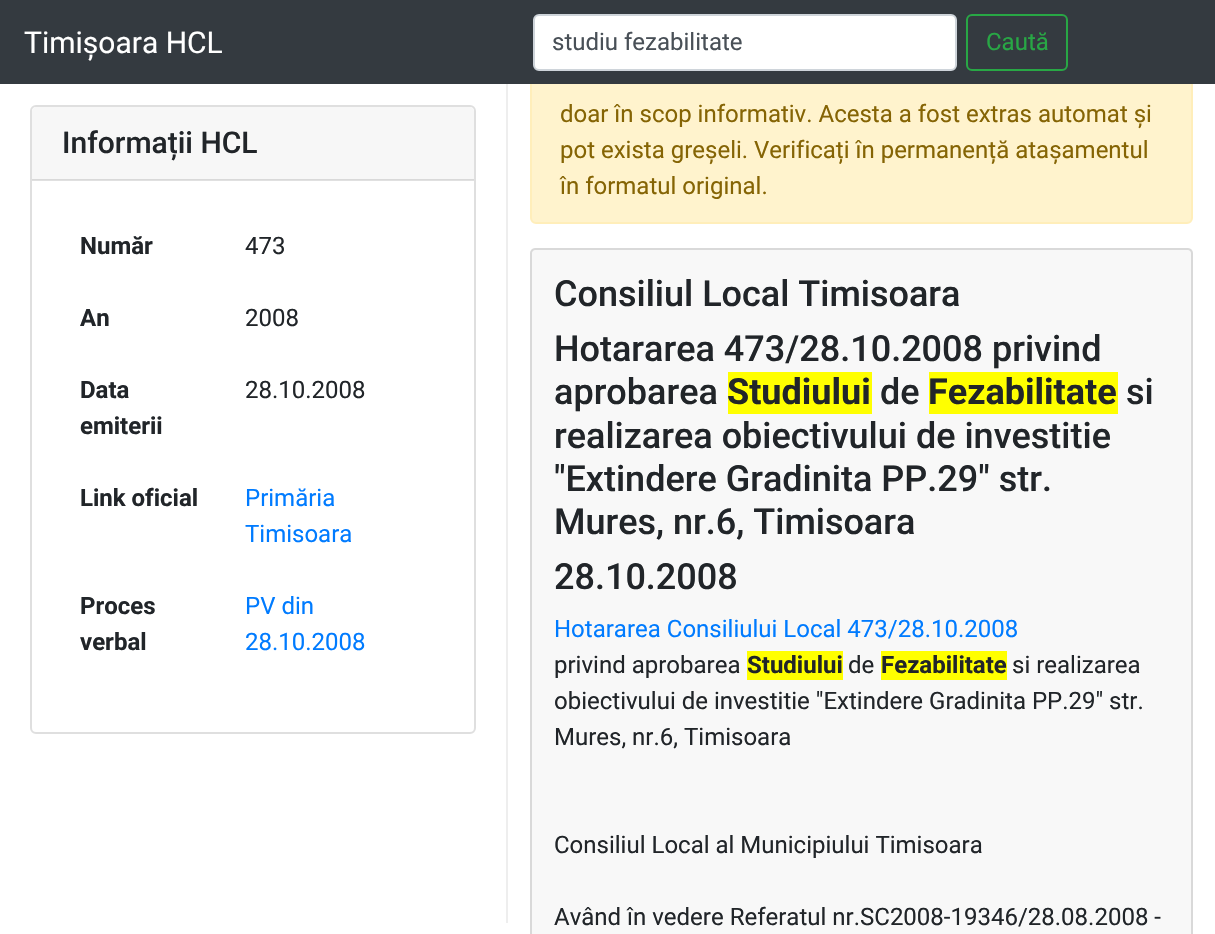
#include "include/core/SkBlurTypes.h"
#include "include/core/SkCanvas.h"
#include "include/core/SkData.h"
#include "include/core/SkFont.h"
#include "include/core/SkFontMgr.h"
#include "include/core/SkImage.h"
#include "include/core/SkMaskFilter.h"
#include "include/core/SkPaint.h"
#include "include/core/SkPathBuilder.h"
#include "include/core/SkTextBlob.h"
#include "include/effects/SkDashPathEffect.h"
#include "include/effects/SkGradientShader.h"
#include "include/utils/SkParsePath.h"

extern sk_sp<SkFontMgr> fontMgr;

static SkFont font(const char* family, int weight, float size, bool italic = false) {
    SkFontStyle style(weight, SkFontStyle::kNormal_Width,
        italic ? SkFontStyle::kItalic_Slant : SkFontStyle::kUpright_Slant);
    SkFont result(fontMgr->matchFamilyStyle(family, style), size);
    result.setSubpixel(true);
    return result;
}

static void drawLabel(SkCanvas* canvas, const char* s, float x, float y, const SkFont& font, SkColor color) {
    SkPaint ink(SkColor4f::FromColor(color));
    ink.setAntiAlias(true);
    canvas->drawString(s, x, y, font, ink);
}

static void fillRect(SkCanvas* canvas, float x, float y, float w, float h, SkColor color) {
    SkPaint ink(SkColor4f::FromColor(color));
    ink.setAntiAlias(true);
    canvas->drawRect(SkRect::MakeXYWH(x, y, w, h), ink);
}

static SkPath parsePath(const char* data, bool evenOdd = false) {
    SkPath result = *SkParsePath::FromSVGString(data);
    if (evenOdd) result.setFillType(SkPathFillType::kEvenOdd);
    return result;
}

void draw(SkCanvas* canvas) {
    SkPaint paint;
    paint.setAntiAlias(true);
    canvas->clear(0xFFFFFFFF);
    fillRect(canvas, 32, 180, 442, 1, 0xFFE0E0E0);
    paint.setColor(0xFFFFF3CD);
    canvas->drawRoundRect(SkRect::MakeXYWH(531, 42, 661, 181), 5, 5, paint);
    paint.setStroke(true);
    paint.setStrokeWidth(2);
    paint.setColor(0xFFFFEEBA);
    canvas->drawRoundRect(SkRect::MakeXYWH(531, 42, 661, 181), 5, 5, paint);
    fillRect(canvas, 0, 0, 1215, 84, 0xFF343A40);
    SkFont font1 = font("Roboto", 400, 30);
    drawLabel(canvas, "Timișoara HCL", 24, 53, font1, 0xFFFFFFFF);
    paint.setStroke(false);
    paint.setColor(0xFFFFFFFF);
    canvas->drawRoundRect(SkRect::MakeXYWH(534, 15, 422, 55), 5, 5, paint);
    paint.setStroke(true);
    paint.setColor(0xFFCED4DA);
    canvas->drawRoundRect(SkRect::MakeXYWH(534, 15, 422, 55), 5, 5, paint);
    SkFont font2 = font("Roboto", 400, 24);
    drawLabel(canvas, "studiu fezabilitate", 552, 50, font2, 0xFF495057);
    paint.setColor(0xFF28A745);
    canvas->drawRoundRect(SkRect::MakeXYWH(967, 15, 100, 55), 5, 5, paint);
    drawLabel(canvas, "Caută", 986, 50, font2, 0xFF28A745);
    fillRect(canvas, 506, 84, 2, 839, 0xFFEEEEEE);
    paint.setColor(0xFFDFDFDF);
    canvas->drawRoundRect(SkRect::MakeXYWH(31, 106, 444, 627), 5, 5, paint);
    paint.setStroke(false);
    paint.setColor(0xFFF7F7F7);
    canvas->drawPath(parsePath("M37 107H469C472 107 474 109 474 112V180H32V112C32 109 34 107 37 107Z"), paint);
    fillRect(canvas, 32, 179, 442, 1, 0xFFD9D9D9);
    SkFont font3 = font("Roboto", 500, 30);
    drawLabel(canvas, "Informații HCL", 62, 153, font3, 0xFF212529);
    SkFont font4 = font("Roboto", 700, 24);
    drawLabel(canvas, "Număr", 80, 254, font4, 0xFF212529);
    drawLabel(canvas, "473", 245, 254, font2, 0xFF212529);
    drawLabel(canvas, "An", 80, 326, font4, 0xFF212529);
    drawLabel(canvas, "2008", 245, 326, font2, 0xFF212529);
    drawLabel(canvas, "Data", 80, 398, font4, 0xFF212529);
    drawLabel(canvas, "emiterii", 80, 434, font4, 0xFF212529);
    drawLabel(canvas, "28.10.2008", 245, 398, font2, 0xFF212529);
    drawLabel(canvas, "Link oficial", 80, 506, font4, 0xFF212529);
    drawLabel(canvas, "Primăria", 245, 506, font2, 0xFF007BFF);
    drawLabel(canvas, "Timisoara", 245, 542, font2, 0xFF007BFF);
    drawLabel(canvas, "Proces", 80, 614, font4, 0xFF212529);
    drawLabel(canvas, "verbal", 80, 650, font4, 0xFF212529);
    drawLabel(canvas, "PV din", 245, 614, font2, 0xFF007BFF);
    drawLabel(canvas, "28.10.2008", 245, 650, font2, 0xFF007BFF);
    drawLabel(canvas, "doar în scop informativ. Acesta a fost extras automat și", 560, 122, font2, 0xFF856404);
    drawLabel(canvas, "pot exista greșeli. Verificați în permanență atașamentul", 560, 158, font2, 0xFF856404);
    drawLabel(canvas, "în formatul original.", 560, 194, font2, 0xFF856404);
    paint.setColor(0xFFF8F8F8);
    canvas->drawPath(parsePath("M535 248H1188C1191 248 1193 250 1193 253V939H530V253C530 250 532 248 535 248Z"), paint);
    paint.setStroke(true);
    paint.setColor(0x1F000000);
    canvas->drawPath(parsePath("M535 249H1188C1190 249 1192 251 1192 253V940H531V253C531 251 533 249 535 249Z"), paint);
    SkFont font5 = font("Roboto", 500, 36);
    drawLabel(canvas, "Consiliul Local Timisoara", 554, 306, font5, 0xFF212529);
    drawLabel(canvas, "Hotararea 473/28.10.2008 privind", 554, 361, font5, 0xFF212529);
    drawLabel(canvas, "aprobarea", 554, 404, font5, 0xFF212529);
    fillRect(canvas, 728, 372, 144, 42, 0xFFFFFF00);
    SkFont font6 = font("Roboto", 700, 36);
    drawLabel(canvas, "Studiului", 727, 404, font6, 0xFF212529);
    drawLabel(canvas, "de", 880, 404, font5, 0xFF212529);
    fillRect(canvas, 929, 372, 189, 42, 0xFFFFFF00);
    drawLabel(canvas, "Fezabilitate", 928, 404, font6, 0xFF212529);
    drawLabel(canvas, "si", 1126, 404, font5, 0xFF212529);
    drawLabel(canvas, "realizarea obiectivului de investitie", 554, 448, font5, 0xFF212529);
    drawLabel(canvas, "\"Extindere Gradinita PP.29\" str.", 554, 491, font5, 0xFF212529);
    drawLabel(canvas, "Mures, nr.6, Timisoara", 554, 534, font5, 0xFF212529);
    drawLabel(canvas, "28.10.2008", 554, 589, font5, 0xFF212529);
    drawLabel(canvas, "Hotararea Consiliului Local 473/28.10.2008", 554, 637, font2, 0xFF007BFF);
    drawLabel(canvas, "privind aprobarea", 554, 673, font2, 0xFF212529);
    fillRect(canvas, 747, 651, 96, 29, 0xFFFFFF00);
    drawLabel(canvas, "Studiului", 747, 673, font4, 0xFF212529);
    drawLabel(canvas, "de", 848, 673, font2, 0xFF212529);
    fillRect(canvas, 881, 651, 126, 29, 0xFFFFFF00);
    drawLabel(canvas, "Fezabilitate", 881, 673, font4, 0xFF212529);
    drawLabel(canvas, "si realizarea", 1012, 673, font2, 0xFF212529);
    drawLabel(canvas, "obiectivului de investitie \"Extindere Gradinita PP.29\" str.", 554, 709, font2, 0xFF212529);
    drawLabel(canvas, "Mures, nr.6, Timisoara", 554, 745, font2, 0xFF212529);
    drawLabel(canvas, "Consiliul Local al Municipiului Timisoara", 554, 853, font2, 0xFF212529);
    drawLabel(canvas, "Având în vedere Referatul nr.SC2008-19346/28.08.2008 -", 554, 925, font2, 0xFF212529);
}
